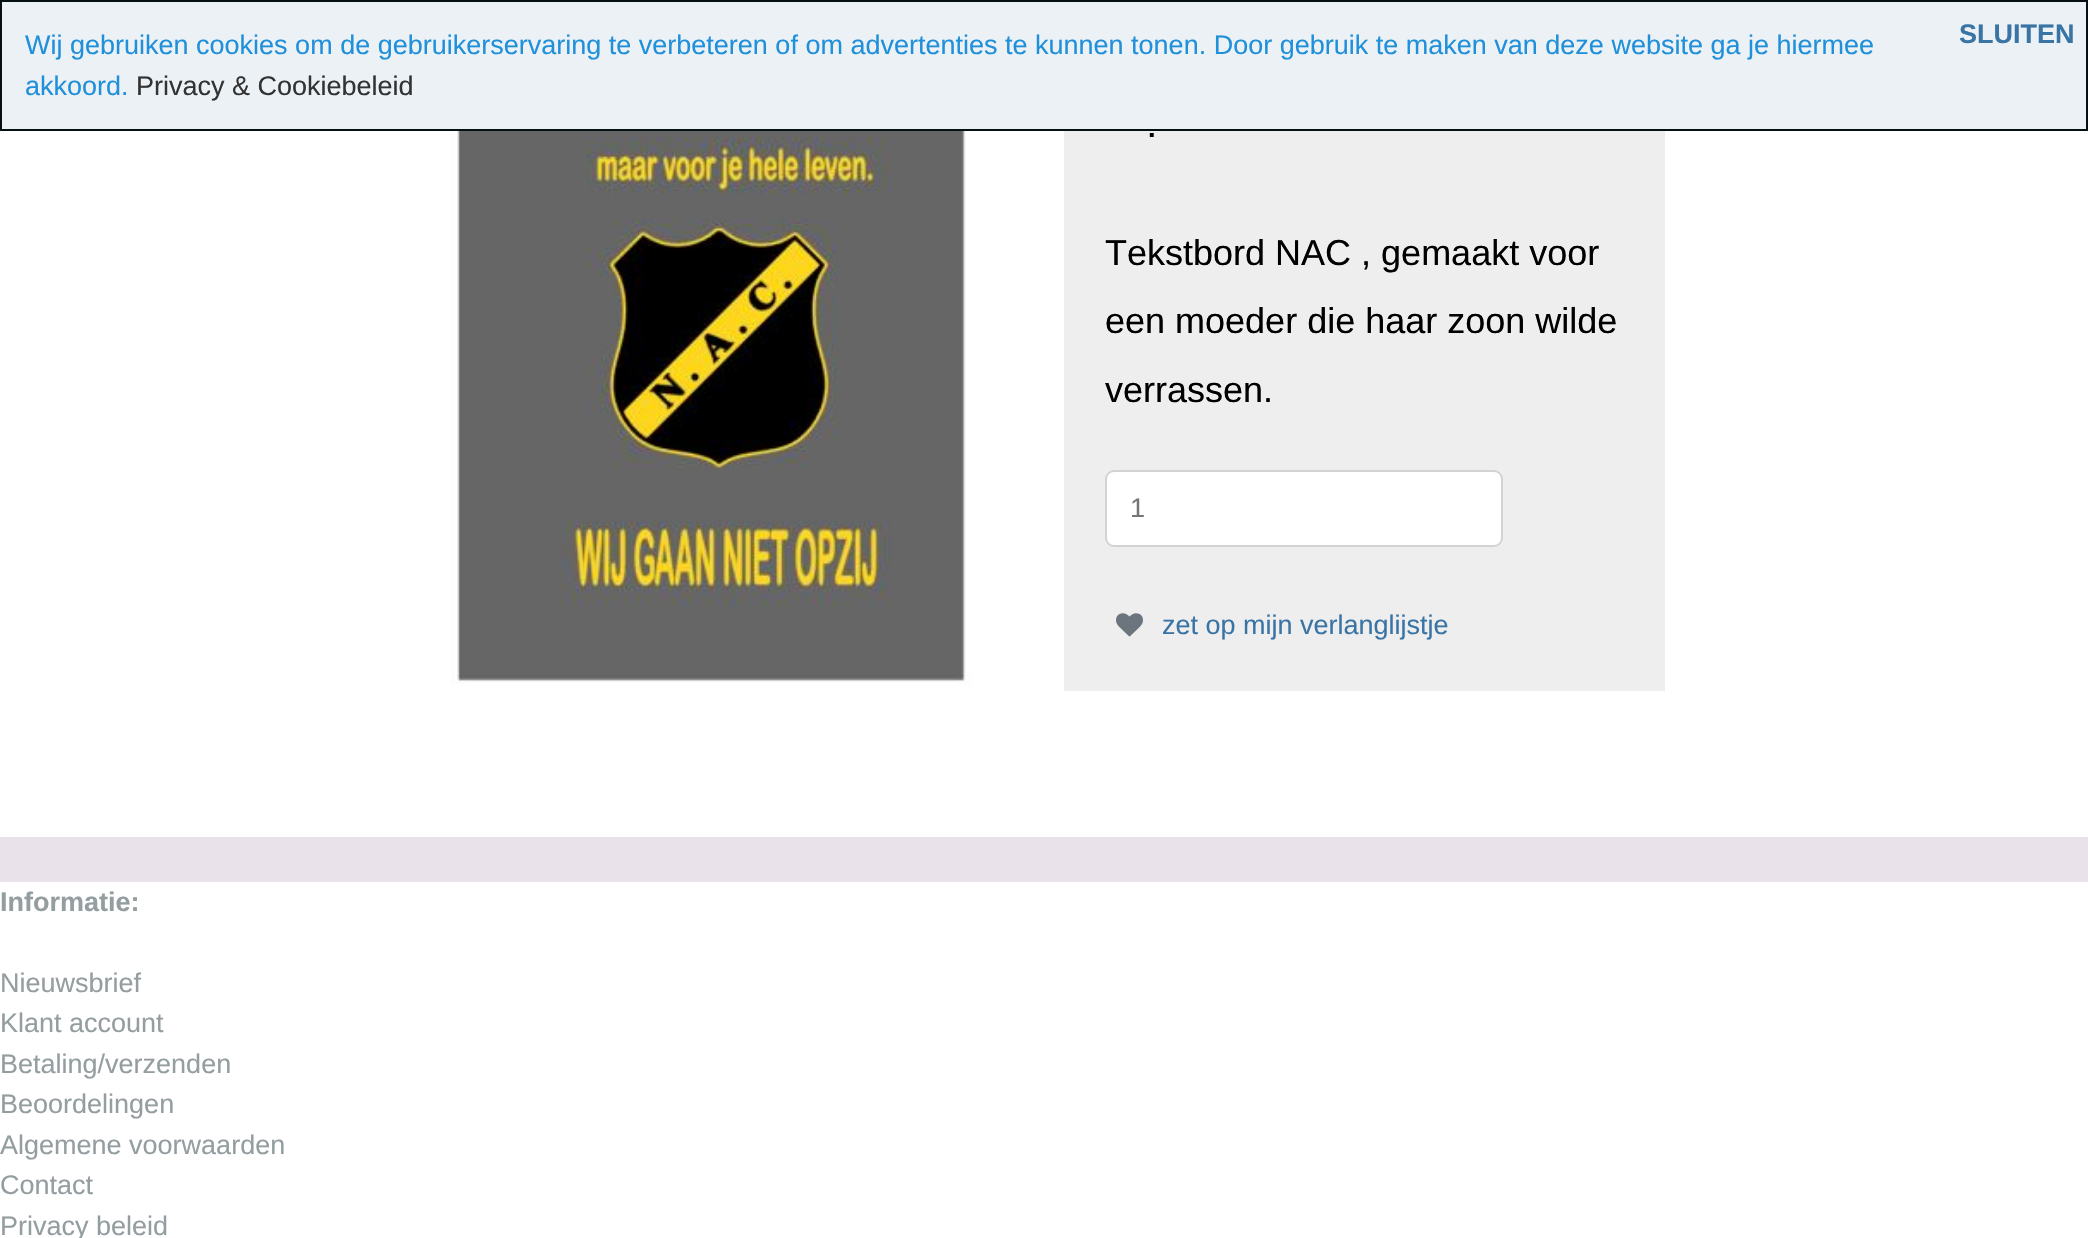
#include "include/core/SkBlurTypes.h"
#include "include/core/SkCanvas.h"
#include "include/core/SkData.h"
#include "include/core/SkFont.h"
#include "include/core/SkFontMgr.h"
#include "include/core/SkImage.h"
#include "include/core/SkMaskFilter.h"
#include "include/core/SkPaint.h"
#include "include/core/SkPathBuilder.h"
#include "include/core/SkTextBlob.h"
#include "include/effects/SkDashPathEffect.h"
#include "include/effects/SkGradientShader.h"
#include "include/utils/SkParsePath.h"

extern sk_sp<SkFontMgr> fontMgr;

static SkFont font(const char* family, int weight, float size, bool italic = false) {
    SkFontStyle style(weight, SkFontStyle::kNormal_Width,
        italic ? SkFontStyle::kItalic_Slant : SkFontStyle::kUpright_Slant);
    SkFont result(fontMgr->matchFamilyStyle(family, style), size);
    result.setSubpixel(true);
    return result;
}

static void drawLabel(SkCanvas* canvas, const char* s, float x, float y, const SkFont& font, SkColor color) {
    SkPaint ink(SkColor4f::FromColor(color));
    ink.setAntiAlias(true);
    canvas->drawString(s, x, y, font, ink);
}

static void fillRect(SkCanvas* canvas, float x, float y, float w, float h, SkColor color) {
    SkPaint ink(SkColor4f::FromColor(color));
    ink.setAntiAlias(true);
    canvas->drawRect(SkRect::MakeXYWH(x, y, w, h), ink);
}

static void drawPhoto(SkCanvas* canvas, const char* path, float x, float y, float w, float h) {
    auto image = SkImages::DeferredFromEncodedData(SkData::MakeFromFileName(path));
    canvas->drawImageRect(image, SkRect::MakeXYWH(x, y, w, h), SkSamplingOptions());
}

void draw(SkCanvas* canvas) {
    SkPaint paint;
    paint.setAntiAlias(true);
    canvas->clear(0xFFFFFFFF);
    paint.setColor(0xFFEBF1F4);
    canvas->drawRect(SkRect::MakeXYWH(1, 1, 2086, 129), paint);
    paint.setStroke(true);
    paint.setStrokeWidth(2);
    paint.setColor(0xFF061014);
    canvas->drawRect(SkRect::MakeXYWH(1, 1, 2086, 129), paint);
    SkFont font1 = font("Liberation Sans", 400, 27);
    drawLabel(canvas, "Wij gebruiken cookies om de gebruikerservaring te verbeteren of om advertenties te kunnen tonen. Door gebruik te maken van deze website ga je hiermee", 25, 54, font1, 0xFF2090DB);
    drawLabel(canvas, "akkoord.", 25, 95, font1, 0xFF2090DB);
    drawLabel(canvas, "Privacy & Cookiebeleid", 136, 95, font1, 0xFF333333);
    SkFont font2 = font("Liberation Sans", 700, 27);
    drawLabel(canvas, "SLUITEN", 1959, 43, font2, 0xFF3974A5);
    drawPhoto(canvas, "assets/img1.png", 451, 131, 521, 554);
    fillRect(canvas, 1064, 131, 601, 560, 0xFFEEEEEE);
    drawLabel(canvas, ".", 1148, 137, font2, 0xFF000000);
    SkFont font3 = font("Liberation Sans", 400, 36);
    drawLabel(canvas, "Tekstbord NAC , gemaakt voor", 1105, 265, font3, 0xFF000000);
    drawLabel(canvas, "een moeder die haar zoon wilde", 1105, 333, font3, 0xFF000000);
    drawLabel(canvas, "verrassen.", 1105, 402, font3, 0xFF000000);
    paint.setStroke(false);
    paint.setColor(0xFFFFFFFF);
    canvas->drawRoundRect(SkRect::MakeXYWH(1106, 471, 396, 75), 8, 8, paint);
    paint.setStroke(true);
    paint.setColor(0xFFD3D3D3);
    canvas->drawRoundRect(SkRect::MakeXYWH(1106, 471, 396, 75), 8, 8, paint);
    drawLabel(canvas, "1", 1130, 517, font1, 0xFF757474);
    drawPhoto(canvas, "assets/img2.png", 1116, 613, 27, 24);
    drawLabel(canvas, "zet op mijn verlanglijstje", 1162, 634, font1, 0xFF3974A5);
    fillRect(canvas, 0, 837, 2088, 45, 0xFFE9E2EA);
    drawLabel(canvas, "Informatie:", 0, 911, font2, 0xFF949DA0);
    drawLabel(canvas, "Nieuwsbrief", 0, 992, font1, 0xFF949DA0);
    drawLabel(canvas, "Klant account", 0, 1032, font1, 0xFF949DA0);
    drawLabel(canvas, "Betaling/verzenden", 0, 1073, font1, 0xFF949DA0);
    drawLabel(canvas, "Beoordelingen", 0, 1113, font1, 0xFF949DA0);
    drawLabel(canvas, "Algemene voorwaarden", 0, 1154, font1, 0xFF949DA0);
    drawLabel(canvas, "Contact", 0, 1194, font1, 0xFF949DA0);
    drawLabel(canvas, "Privacy beleid", 0, 1235, font1, 0xFF949DA0);
}
